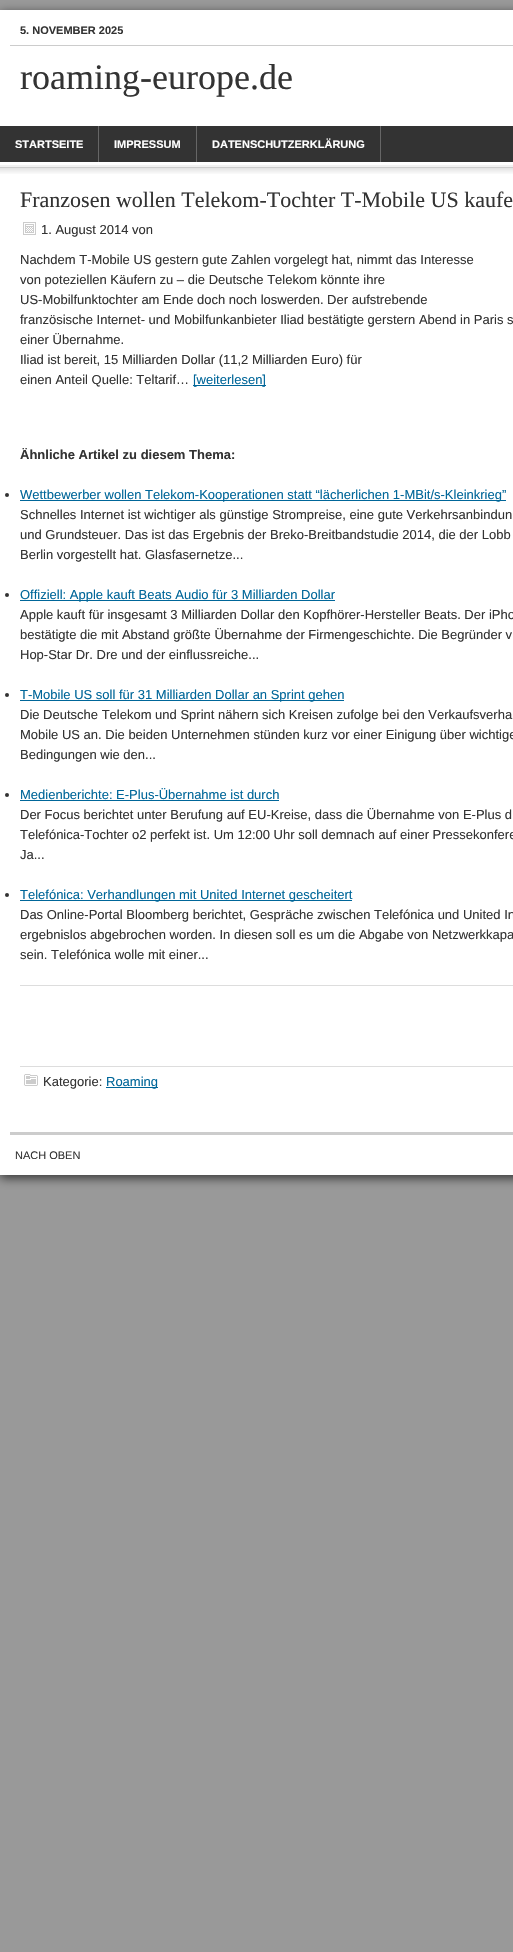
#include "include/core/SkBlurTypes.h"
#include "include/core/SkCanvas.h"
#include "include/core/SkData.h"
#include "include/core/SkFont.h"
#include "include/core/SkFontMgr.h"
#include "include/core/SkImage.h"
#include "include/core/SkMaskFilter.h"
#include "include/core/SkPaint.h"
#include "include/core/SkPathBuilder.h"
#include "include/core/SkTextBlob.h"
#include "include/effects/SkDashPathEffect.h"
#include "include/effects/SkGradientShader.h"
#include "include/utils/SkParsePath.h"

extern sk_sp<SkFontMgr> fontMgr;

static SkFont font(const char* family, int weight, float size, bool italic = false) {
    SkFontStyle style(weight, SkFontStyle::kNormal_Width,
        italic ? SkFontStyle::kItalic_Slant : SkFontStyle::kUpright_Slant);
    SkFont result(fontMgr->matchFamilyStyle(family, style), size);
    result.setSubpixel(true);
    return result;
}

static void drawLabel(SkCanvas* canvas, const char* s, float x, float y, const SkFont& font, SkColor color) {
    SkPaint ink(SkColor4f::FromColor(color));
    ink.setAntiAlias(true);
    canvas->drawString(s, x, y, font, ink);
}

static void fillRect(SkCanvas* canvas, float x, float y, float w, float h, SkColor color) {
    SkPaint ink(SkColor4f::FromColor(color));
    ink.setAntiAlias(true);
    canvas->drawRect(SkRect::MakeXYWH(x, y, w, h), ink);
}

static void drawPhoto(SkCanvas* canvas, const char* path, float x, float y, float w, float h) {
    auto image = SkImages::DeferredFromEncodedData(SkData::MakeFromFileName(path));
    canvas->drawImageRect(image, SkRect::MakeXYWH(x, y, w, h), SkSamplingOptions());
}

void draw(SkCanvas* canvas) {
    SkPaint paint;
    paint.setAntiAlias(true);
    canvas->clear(0xFF999999);
    paint.setColor(0xFF333333);
    paint.setMaskFilter(SkMaskFilter::MakeBlur(kNormal_SkBlurStyle, 5));
    canvas->drawRect(SkRect::MakeXYWH(0, 13, 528, 1165), paint);
    paint.setMaskFilter(nullptr);
    fillRect(canvas, 0, 10, 513, 1165, 0xFFFFFFFF);
    fillRect(canvas, 10, 45, 503, 1, 0xFFCCCCCC);
    SkFont font1 = font("Liberation Sans", 700, 11);
    drawLabel(canvas, "5. NOVEMBER 2025", 20, 34, font1, 0xFF333333);
    SkFont font2 = font("Liberation Serif", 400, 36);
    drawLabel(canvas, "roaming-europe.de", 20, 89, font2, 0xFF333333);
    fillRect(canvas, 0, 126, 513, 36, 0xFF333333);
    fillRect(canvas, 98, 126, 1, 36, 0xFF666666);
    drawLabel(canvas, "STARTSEITE", 15, 148, font1, 0xFFFFFFFF);
    fillRect(canvas, 196, 126, 1, 36, 0xFF666666);
    drawLabel(canvas, "IMPRESSUM", 114, 148, font1, 0xFFFFFFFF);
    fillRect(canvas, 380, 126, 1, 36, 0xFF666666);
    drawLabel(canvas, "DATENSCHUTZERKLÄRUNG", 212, 148, font1, 0xFFFFFFFF);
    drawPhoto(canvas, "assets/img1.png", 0, 165, 513, 9);
    SkFont font3 = font("Liberation Serif", 400, 22);
    drawLabel(canvas, "Franzosen wollen Telekom-Tochter T-Mobile US kaufe", 20, 207, font3, 0xFF333333);
    drawPhoto(canvas, "assets/img2.png", 23, 222, 13, 13);
    SkFont font4 = font("Liberation Sans", 400, 13);
    drawLabel(canvas, "1. August 2014 von", 41, 234, font4, 0xFF333333);
    drawLabel(canvas, "Nachdem T-Mobile US gestern gute Zahlen vorgelegt hat, nimmt das Interesse", 20, 264, font4, 0xFF333333);
    drawLabel(canvas, "von poteziellen Käufern zu – die Deutsche Telekom könnte ihre", 20, 284, font4, 0xFF333333);
    drawLabel(canvas, "US-Mobilfunktochter am Ende doch noch loswerden. Der aufstrebende", 20, 304, font4, 0xFF333333);
    drawLabel(canvas, "französische Internet- und Mobilfunkanbieter Iliad bestätigte gerstern Abend in Paris s", 20, 324, font4, 0xFF333333);
    drawLabel(canvas, "einer Übernahme.", 20, 344, font4, 0xFF333333);
    drawLabel(canvas, "Iliad ist bereit, 15 Milliarden Dollar (11,2 Milliarden Euro) für", 20, 364, font4, 0xFF333333);
    drawLabel(canvas, "einen Anteil Quelle: Teltarif…", 20, 384, font4, 0xFF333333);
    fillRect(canvas, 193, 385, 73, 1, 0xFF006699);
    drawLabel(canvas, "[weiterlesen]", 193, 384, font4, 0xFF006699);
    SkFont font5 = font("Liberation Sans", 700, 13);
    drawLabel(canvas, "Ähnliche Artikel zu diesem Thema:", 20, 459, font5, 0xFF333333);
    canvas->drawCircle(7, 495, 2, paint);
    fillRect(canvas, 20, 500, 486, 1, 0xFF006699);
    drawLabel(canvas, "Wettbewerber wollen Telekom-Kooperationen statt “lächerlichen 1-MBit/s-Kleinkrieg”", 20, 499, font4, 0xFF006699);
    drawLabel(canvas, "Schnelles Internet ist wichtiger als günstige Strompreise, eine gute Verkehrsanbindun", 20, 519, font4, 0xFF333333);
    drawLabel(canvas, "und Grundsteuer. Das ist das Ergebnis der Breko-Breitbandstudie 2014, die der Lobb", 20, 539, font4, 0xFF333333);
    drawLabel(canvas, "Berlin vorgestellt hat. Glasfasernetze...", 20, 559, font4, 0xFF333333);
    canvas->drawCircle(7, 595, 2, paint);
    fillRect(canvas, 20, 600, 315, 1, 0xFF006699);
    drawLabel(canvas, "Offiziell: Apple kauft Beats Audio für 3 Milliarden Dollar", 20, 599, font4, 0xFF006699);
    drawLabel(canvas, "Apple kauft für insgesamt 3 Milliarden Dollar den Kopfhörer-Hersteller Beats. Der iPho", 20, 619, font4, 0xFF333333);
    drawLabel(canvas, "bestätigte die mit Abstand größte Übernahme der Firmengeschichte. Die Begründer v", 20, 639, font4, 0xFF333333);
    drawLabel(canvas, "Hop-Star Dr. Dre und der einflussreiche...", 20, 659, font4, 0xFF333333);
    canvas->drawCircle(7, 695, 2, paint);
    fillRect(canvas, 20, 700, 324, 1, 0xFF006699);
    drawLabel(canvas, "T-Mobile US soll für 31 Milliarden Dollar an Sprint gehen", 20, 699, font4, 0xFF006699);
    drawLabel(canvas, "Die Deutsche Telekom und Sprint nähern sich Kreisen zufolge bei den Verkaufsverha", 20, 719, font4, 0xFF333333);
    drawLabel(canvas, "Mobile US an. Die beiden Unternehmen stünden kurz vor einer Einigung über wichtige", 20, 739, font4, 0xFF333333);
    drawLabel(canvas, "Bedingungen wie den...", 20, 759, font4, 0xFF333333);
    canvas->drawCircle(7, 795, 2, paint);
    drawLabel(canvas, "Medienberichte: E-Plus-Übernahme ist durch", 20, 799, font4, 0xFF006699);
    fillRect(canvas, 20, 800, 259, 1, 0xFF006699);
    drawLabel(canvas, "Der Focus berichtet unter Berufung auf EU-Kreise, dass die Übernahme von E-Plus d", 20, 819, font4, 0xFF333333);
    drawLabel(canvas, "Telefónica-Tochter o2 perfekt ist. Um 12:00 Uhr soll demnach auf einer Pressekonfere", 20, 839, font4, 0xFF333333);
    drawLabel(canvas, "Ja...", 20, 859, font4, 0xFF333333);
    canvas->drawCircle(7, 895, 2, paint);
    fillRect(canvas, 20, 900, 332, 1, 0xFF006699);
    drawLabel(canvas, "Telefónica: Verhandlungen mit United Internet gescheitert", 20, 899, font4, 0xFF006699);
    drawLabel(canvas, "Das Online-Portal Bloomberg berichtet, Gespräche zwischen Telefónica und United In", 20, 919, font4, 0xFF333333);
    drawLabel(canvas, "ergebnislos abgebrochen worden. In diesen soll es um die Abgabe von Netzwerkkapa", 20, 939, font4, 0xFF333333);
    drawLabel(canvas, "sein. Telefónica wolle mit einer...", 20, 959, font4, 0xFF333333);
    fillRect(canvas, 20, 985, 493, 1, 0xFFDDDDDD);
    fillRect(canvas, 20, 1066, 493, 1, 0xFFDDDDDD);
    drawPhoto(canvas, "assets/img3.png", 24, 1074, 14, 12);
    drawLabel(canvas, "Kategorie:", 43, 1086, font4, 0xFF333333);
    fillRect(canvas, 106, 1087, 52, 1, 0xFF006699);
    drawLabel(canvas, "Roaming", 106, 1086, font4, 0xFF006699);
    fillRect(canvas, 10, 1132, 503, 3, 0xFFCCCCCC);
    SkFont font6 = font("Liberation Sans", 400, 11);
    drawLabel(canvas, "NACH OBEN", 15, 1159, font6, 0xFF333333);
}
